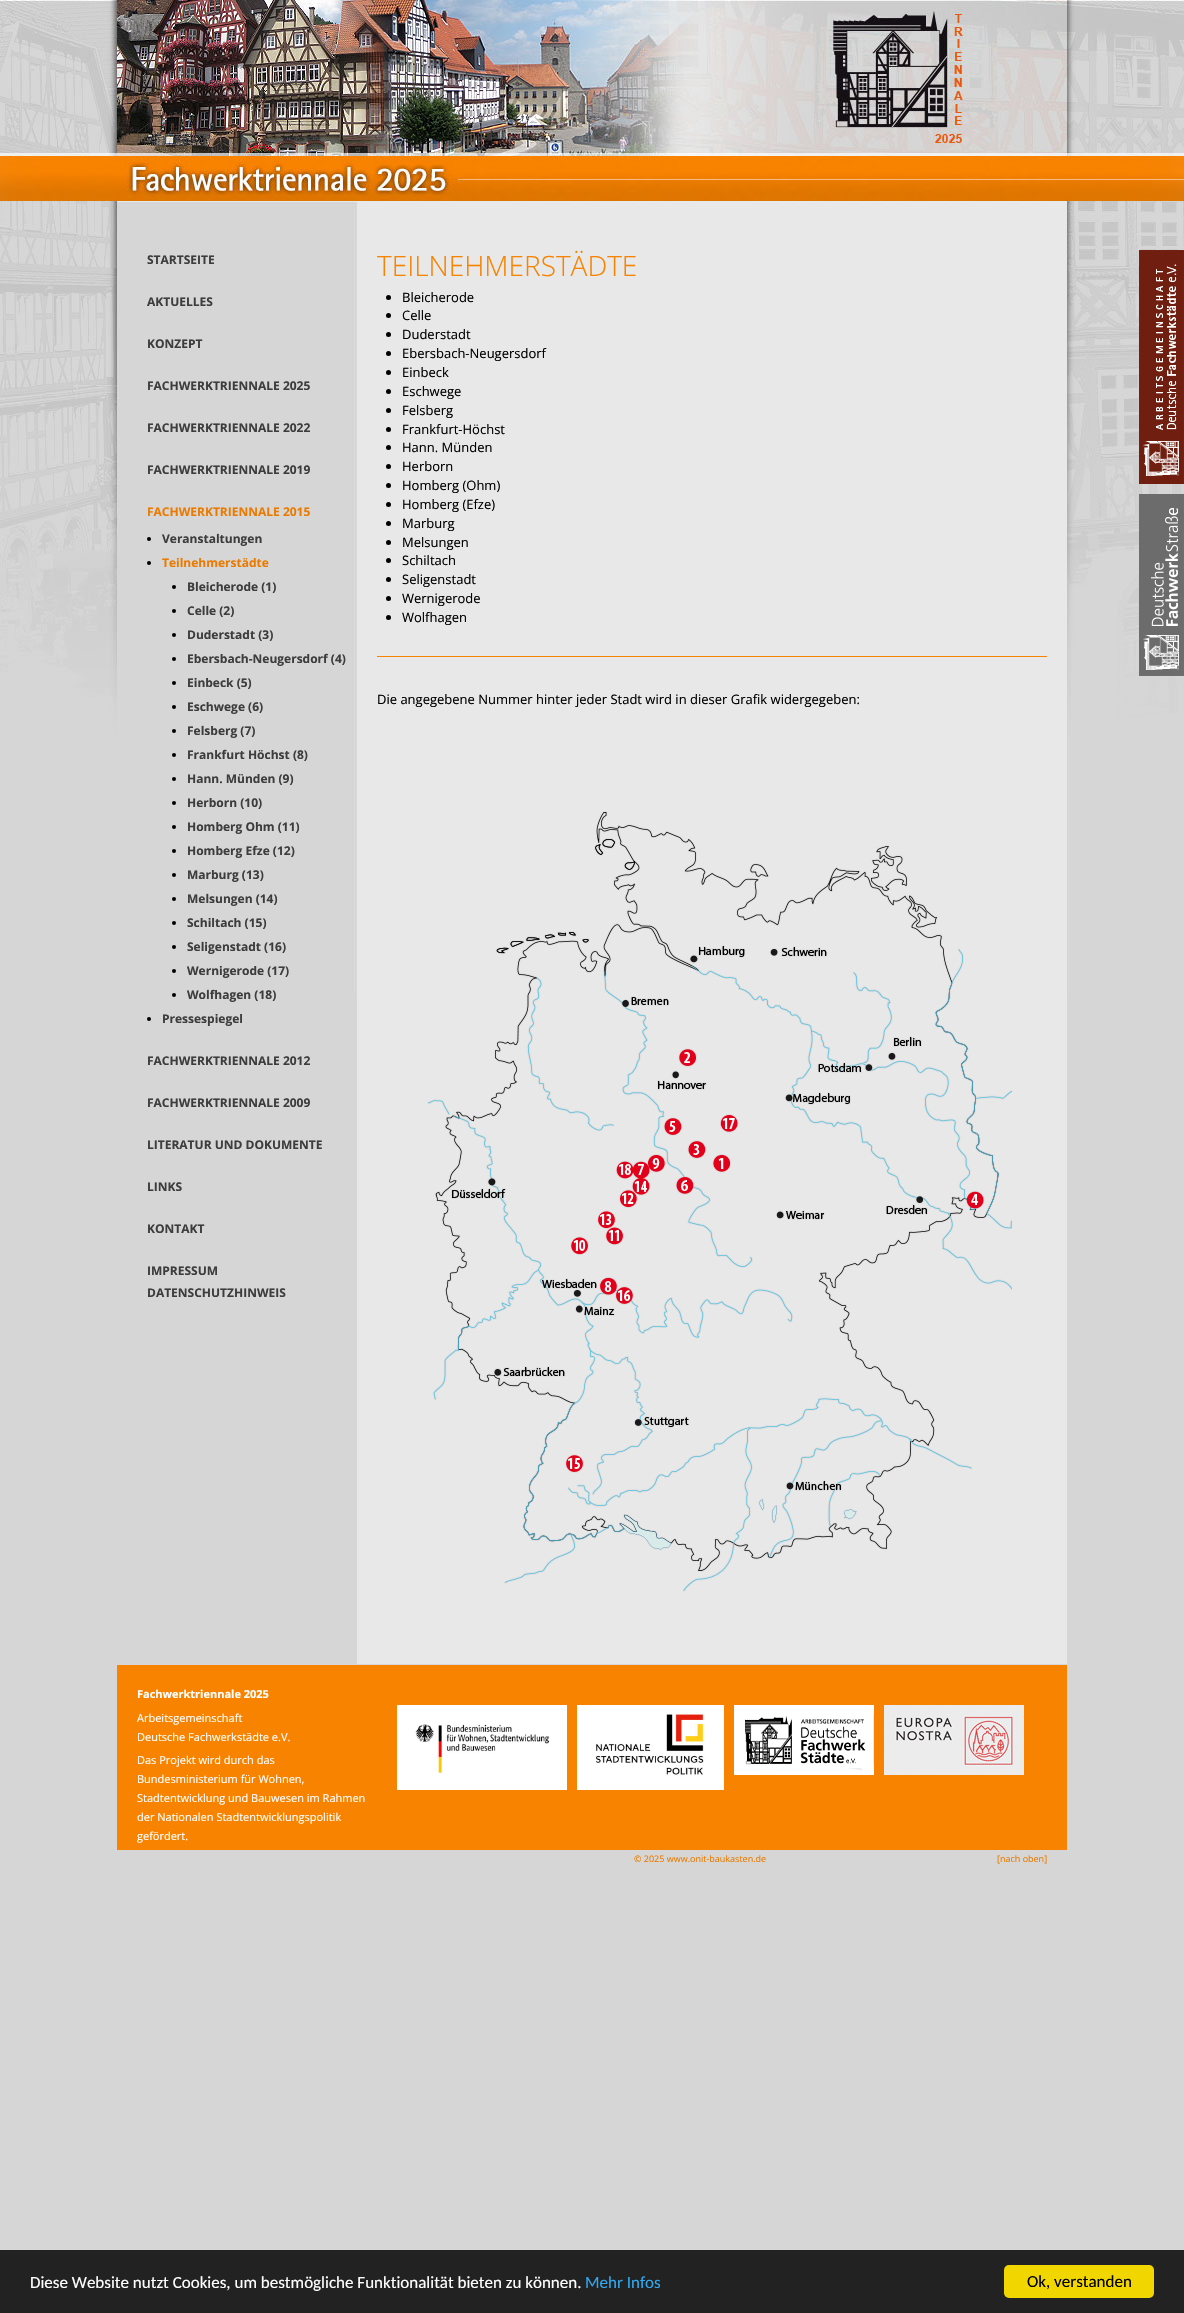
#include "include/core/SkBlurTypes.h"
#include "include/core/SkCanvas.h"
#include "include/core/SkData.h"
#include "include/core/SkFont.h"
#include "include/core/SkFontMgr.h"
#include "include/core/SkImage.h"
#include "include/core/SkMaskFilter.h"
#include "include/core/SkPaint.h"
#include "include/core/SkPathBuilder.h"
#include "include/core/SkTextBlob.h"
#include "include/effects/SkDashPathEffect.h"
#include "include/effects/SkGradientShader.h"
#include "include/utils/SkParsePath.h"

extern sk_sp<SkFontMgr> fontMgr;

static SkFont font(const char* family, int weight, float size, bool italic = false) {
    SkFontStyle style(weight, SkFontStyle::kNormal_Width,
        italic ? SkFontStyle::kItalic_Slant : SkFontStyle::kUpright_Slant);
    SkFont result(fontMgr->matchFamilyStyle(family, style), size);
    result.setSubpixel(true);
    return result;
}

static void drawLabel(SkCanvas* canvas, const char* s, float x, float y, const SkFont& font, SkColor color) {
    SkPaint ink(SkColor4f::FromColor(color));
    ink.setAntiAlias(true);
    canvas->drawString(s, x, y, font, ink);
}

static void fillRect(SkCanvas* canvas, float x, float y, float w, float h, SkColor color) {
    SkPaint ink(SkColor4f::FromColor(color));
    ink.setAntiAlias(true);
    canvas->drawRect(SkRect::MakeXYWH(x, y, w, h), ink);
}

static void fillRRect(SkCanvas* canvas, float x, float y, float w, float h, float radius, SkColor color) {
    SkPaint ink(SkColor4f::FromColor(color));
    ink.setAntiAlias(true);
    canvas->drawRoundRect(SkRect::MakeXYWH(x, y, w, h), radius, radius, ink);
}

static void drawPhoto(SkCanvas* canvas, const char* path, float x, float y, float w, float h) {
    auto image = SkImages::DeferredFromEncodedData(SkData::MakeFromFileName(path));
    canvas->drawImageRect(image, SkRect::MakeXYWH(x, y, w, h), SkSamplingOptions());
}

void draw(SkCanvas* canvas) {
    SkPaint paint;
    paint.setAntiAlias(true);
    canvas->clear(0xFFD6D6D6);
    drawPhoto(canvas, "assets/img1.png", 0, 0, 1184, 994);
    drawPhoto(canvas, "assets/img2.png", 117, 0, 950, 208);
    SkFont font1 = font("Open Sans", 700, 12);
    drawLabel(canvas, "STARTSEITE", 147, 264, font1, 0xFF3D3D3D);
    drawLabel(canvas, "AKTUELLES", 147, 306, font1, 0xFF3D3D3D);
    drawLabel(canvas, "KONZEPT", 147, 348, font1, 0xFF3D3D3D);
    drawLabel(canvas, "FACHWERKTRIENNALE 2025", 147, 390, font1, 0xFF3D3D3D);
    drawLabel(canvas, "FACHWERKTRIENNALE 2022", 147, 432, font1, 0xFF3D3D3D);
    drawLabel(canvas, "FACHWERKTRIENNALE 2019", 147, 474, font1, 0xFF3D3D3D);
    drawLabel(canvas, "FACHWERKTRIENNALE 2015", 147, 516, font1, 0xFFEA7B00);
    paint.setColor(0xFF000000);
    canvas->drawCircle(149, 539, 2, paint);
    drawLabel(canvas, "Veranstaltungen", 162, 543, font1, 0xFF3D3D3D);
    canvas->drawCircle(149, 563, 2, paint);
    drawLabel(canvas, "Teilnehmerstädte", 162, 567, font1, 0xFFEA7B00);
    canvas->drawCircle(174, 587, 2, paint);
    drawLabel(canvas, "Bleicherode (1)", 187, 591, font1, 0xFF3D3D3D);
    canvas->drawCircle(174, 611, 2, paint);
    drawLabel(canvas, "Celle (2)", 187, 615, font1, 0xFF3D3D3D);
    canvas->drawCircle(174, 635, 2, paint);
    drawLabel(canvas, "Duderstadt (3)", 187, 639, font1, 0xFF3D3D3D);
    canvas->drawCircle(174, 659, 2, paint);
    drawLabel(canvas, "Ebersbach-Neugersdorf (4)", 187, 663, font1, 0xFF3D3D3D);
    canvas->drawCircle(174, 683, 2, paint);
    drawLabel(canvas, "Einbeck (5)", 187, 687, font1, 0xFF3D3D3D);
    canvas->drawCircle(174, 707, 2, paint);
    drawLabel(canvas, "Eschwege (6)", 187, 711, font1, 0xFF3D3D3D);
    canvas->drawCircle(174, 731, 2, paint);
    drawLabel(canvas, "Felsberg (7)", 187, 735, font1, 0xFF3D3D3D);
    canvas->drawCircle(174, 755, 2, paint);
    drawLabel(canvas, "Frankfurt Höchst (8)", 187, 759, font1, 0xFF3D3D3D);
    canvas->drawCircle(174, 779, 2, paint);
    drawLabel(canvas, "Hann. Münden (9)", 187, 783, font1, 0xFF3D3D3D);
    canvas->drawCircle(174, 803, 2, paint);
    drawLabel(canvas, "Herborn (10)", 187, 807, font1, 0xFF3D3D3D);
    canvas->drawCircle(174, 827, 2, paint);
    drawLabel(canvas, "Homberg Ohm (11)", 187, 831, font1, 0xFF3D3D3D);
    canvas->drawCircle(174, 851, 2, paint);
    drawLabel(canvas, "Homberg Efze (12)", 187, 855, font1, 0xFF3D3D3D);
    canvas->drawCircle(174, 875, 2, paint);
    drawLabel(canvas, "Marburg (13)", 187, 879, font1, 0xFF3D3D3D);
    canvas->drawCircle(174, 899, 2, paint);
    drawLabel(canvas, "Melsungen (14)", 187, 903, font1, 0xFF3D3D3D);
    canvas->drawCircle(174, 923, 2, paint);
    drawLabel(canvas, "Schiltach (15)", 187, 927, font1, 0xFF3D3D3D);
    canvas->drawCircle(174, 947, 2, paint);
    drawLabel(canvas, "Seligenstadt (16)", 187, 951, font1, 0xFF3D3D3D);
    canvas->drawCircle(174, 971, 2, paint);
    drawLabel(canvas, "Wernigerode (17)", 187, 975, font1, 0xFF3D3D3D);
    canvas->drawCircle(174, 995, 2, paint);
    drawLabel(canvas, "Wolfhagen (18)", 187, 999, font1, 0xFF3D3D3D);
    canvas->drawCircle(149, 1019, 2, paint);
    drawLabel(canvas, "Pressespiegel", 162, 1023, font1, 0xFF3D3D3D);
    drawLabel(canvas, "FACHWERKTRIENNALE 2012", 147, 1065, font1, 0xFF3D3D3D);
    drawLabel(canvas, "FACHWERKTRIENNALE 2009", 147, 1107, font1, 0xFF3D3D3D);
    drawLabel(canvas, "LITERATUR UND DOKUMENTE", 147, 1149, font1, 0xFF3D3D3D);
    drawLabel(canvas, "LINKS", 147, 1191, font1, 0xFF3D3D3D);
    drawLabel(canvas, "KONTAKT", 147, 1233, font1, 0xFF3D3D3D);
    drawLabel(canvas, "IMPRESSUM", 147, 1275, font1, 0xFF3D3D3D);
    drawLabel(canvas, "DATENSCHUTZHINWEIS", 147, 1297, font1, 0xFF3D3D3D);
    fillRect(canvas, 357, 244, 710, 1420, 0xFFE8E8E8);
    SkFont font2 = font("Open Sans", 300, 28);
    drawLabel(canvas, "TEILNEHMERSTÄDTE", 377, 276, font2, 0xFFF78300);
    canvas->drawCircle(388.5f, 297.5f, 2.5f, paint);
    SkFont font3 = font("Open Sans", 400, 13);
    drawLabel(canvas, "Bleicherode", 402, 302, font3, 0xFF000000);
    canvas->drawCircle(388.5f, 315.5f, 2.5f, paint);
    drawLabel(canvas, "Celle", 402, 320, font3, 0xFF000000);
    canvas->drawCircle(388.5f, 334.5f, 2.5f, paint);
    drawLabel(canvas, "Duderstadt", 402, 339, font3, 0xFF000000);
    canvas->drawCircle(388.5f, 353.5f, 2.5f, paint);
    drawLabel(canvas, "Ebersbach-Neugersdorf", 402, 358, font3, 0xFF000000);
    canvas->drawCircle(388.5f, 372.5f, 2.5f, paint);
    drawLabel(canvas, "Einbeck", 402, 377, font3, 0xFF000000);
    canvas->drawCircle(388.5f, 391.5f, 2.5f, paint);
    drawLabel(canvas, "Eschwege", 402, 396, font3, 0xFF000000);
    canvas->drawCircle(388.5f, 410.5f, 2.5f, paint);
    drawLabel(canvas, "Felsberg", 402, 415, font3, 0xFF000000);
    canvas->drawCircle(388.5f, 429.5f, 2.5f, paint);
    drawLabel(canvas, "Frankfurt-Höchst", 402, 434, font3, 0xFF000000);
    canvas->drawCircle(388.5f, 447.5f, 2.5f, paint);
    drawLabel(canvas, "Hann. Münden", 402, 452, font3, 0xFF000000);
    canvas->drawCircle(388.5f, 466.5f, 2.5f, paint);
    drawLabel(canvas, "Herborn", 402, 471, font3, 0xFF000000);
    canvas->drawCircle(388.5f, 485.5f, 2.5f, paint);
    drawLabel(canvas, "Homberg (Ohm)", 402, 490, font3, 0xFF000000);
    canvas->drawCircle(388.5f, 504.5f, 2.5f, paint);
    drawLabel(canvas, "Homberg (Efze)", 402, 509, font3, 0xFF000000);
    canvas->drawCircle(388.5f, 523.5f, 2.5f, paint);
    drawLabel(canvas, "Marburg", 402, 528, font3, 0xFF000000);
    canvas->drawCircle(388.5f, 542.5f, 2.5f, paint);
    drawLabel(canvas, "Melsungen", 402, 547, font3, 0xFF000000);
    canvas->drawCircle(388.5f, 560.5f, 2.5f, paint);
    drawLabel(canvas, "Schiltach", 402, 565, font3, 0xFF000000);
    canvas->drawCircle(388.5f, 579.5f, 2.5f, paint);
    drawLabel(canvas, "Seligenstadt", 402, 584, font3, 0xFF000000);
    canvas->drawCircle(388.5f, 598.5f, 2.5f, paint);
    drawLabel(canvas, "Wernigerode", 402, 603, font3, 0xFF000000);
    canvas->drawCircle(388.5f, 617.5f, 2.5f, paint);
    drawLabel(canvas, "Wolfhagen", 402, 622, font3, 0xFF000000);
    fillRect(canvas, 377, 656, 670, 1, 0xFFF88300);
    drawLabel(canvas, "Die angegebene Nummer hinter jeder Stadt wird in dieser Grafik widergegeben:", 377, 704, font3, 0xFF000000);
    drawPhoto(canvas, "assets/img3.png", 427, 811, 585, 781);
    fillRect(canvas, 117, 1665, 950, 185, 0xFFF88300);
    SkFont font4 = font("Open Sans", 700, 11);
    drawLabel(canvas, "Fachwerktriennale 2025", 137, 1698, font4, 0xFFFFFFFF);
    SkFont font5 = font("Open Sans", 400, 11);
    drawLabel(canvas, "Arbeitsgemeinschaft", 137, 1722, font5, 0xFFFFFFFF);
    drawLabel(canvas, "Deutsche Fachwerkstädte e.V.", 137, 1741, font5, 0xFFFFFFFF);
    drawLabel(canvas, "Das Projekt wird durch das", 137, 1764, font5, 0xFFFFFFFF);
    drawLabel(canvas, "Bundesministerium für Wohnen,", 137, 1783, font5, 0xFFFFFFFF);
    drawLabel(canvas, "Stadtentwicklung und Bauwesen im Rahmen", 137, 1802, font5, 0xFFFFFFFF);
    drawLabel(canvas, "der Nationalen Stadtentwicklungspolitik", 137, 1821, font5, 0xFFFFFFFF);
    drawLabel(canvas, "gefördert.", 137, 1840, font5, 0xFFFFFFFF);
    drawPhoto(canvas, "assets/img4.png", 397, 1705, 170, 85);
    drawPhoto(canvas, "assets/img5.png", 577, 1705, 147, 85);
    drawPhoto(canvas, "assets/img6.png", 734, 1705, 140, 70);
    drawPhoto(canvas, "assets/img7.png", 884, 1705, 140, 70);
    SkFont font6 = font("Open Sans", 400, 9);
    drawLabel(canvas, "© 2025 www.onit-baukasten.de", 634, 1862, font6, 0xFFEA7B00);
    drawLabel(canvas, "[nach oben]", 997, 1862, font6, 0xFFEA7B00);
    drawPhoto(canvas, "assets/img8.png", 1139, 250, 45, 234);
    drawPhoto(canvas, "assets/img9.png", 1139, 494, 45, 182);
    fillRect(canvas, 0, 2250, 1184, 63, 0xFF222222);
    SkFont font7 = font("Carlito", 400, 17);
    drawLabel(canvas, "Diese Website nutzt Cookies, um bestmögliche Funktionalität bieten zu können.", 30, 2288, font7, 0xFFFFFFFF);
    drawLabel(canvas, "Mehr Infos", 585, 2288, font7, 0xFF31A8F0);
    fillRRect(canvas, 1004, 2265, 150, 33, 5, 0xFFF1D600);
    drawLabel(canvas, "Ok, verstanden", 1027, 2287, font7, 0xFF000000);
}
